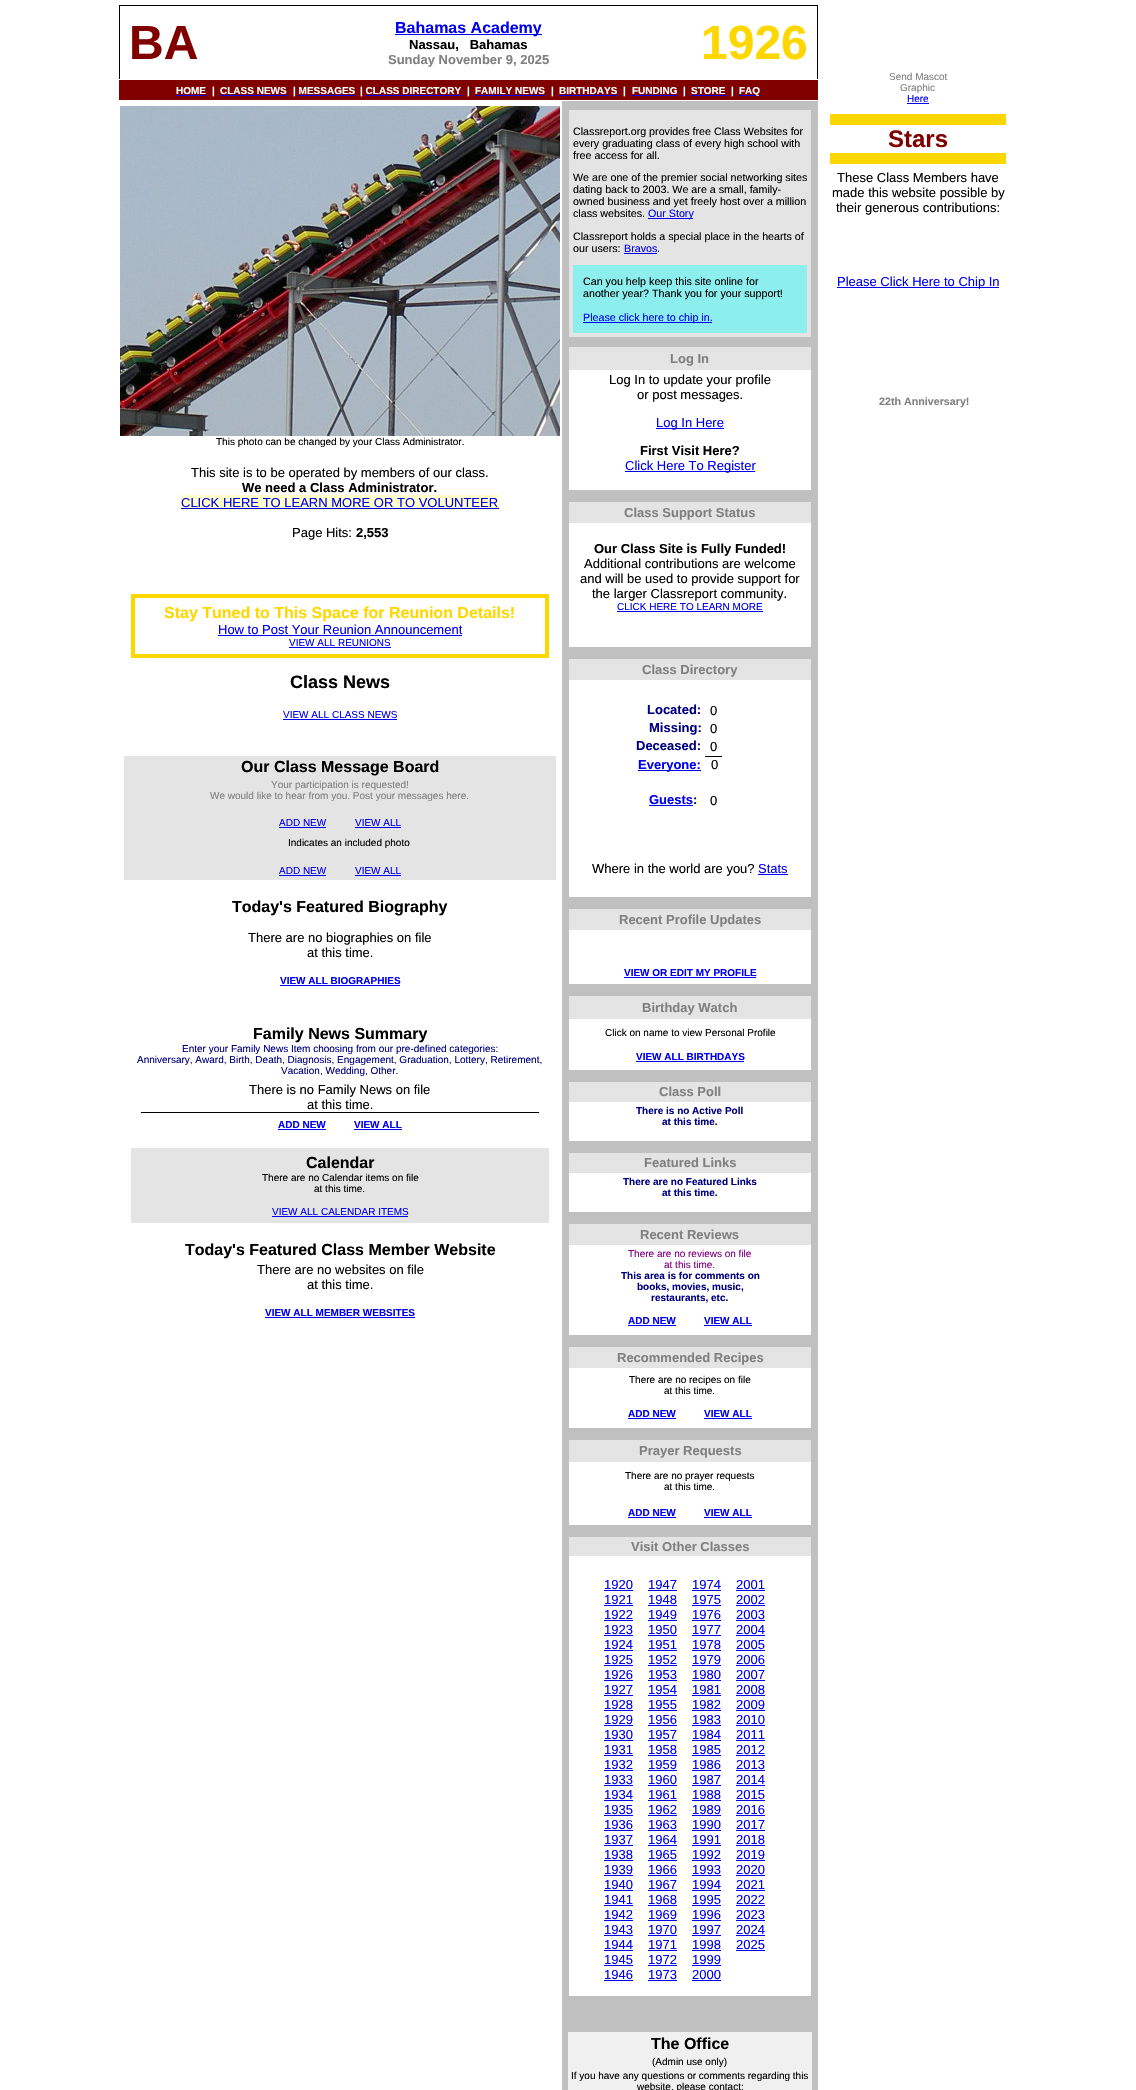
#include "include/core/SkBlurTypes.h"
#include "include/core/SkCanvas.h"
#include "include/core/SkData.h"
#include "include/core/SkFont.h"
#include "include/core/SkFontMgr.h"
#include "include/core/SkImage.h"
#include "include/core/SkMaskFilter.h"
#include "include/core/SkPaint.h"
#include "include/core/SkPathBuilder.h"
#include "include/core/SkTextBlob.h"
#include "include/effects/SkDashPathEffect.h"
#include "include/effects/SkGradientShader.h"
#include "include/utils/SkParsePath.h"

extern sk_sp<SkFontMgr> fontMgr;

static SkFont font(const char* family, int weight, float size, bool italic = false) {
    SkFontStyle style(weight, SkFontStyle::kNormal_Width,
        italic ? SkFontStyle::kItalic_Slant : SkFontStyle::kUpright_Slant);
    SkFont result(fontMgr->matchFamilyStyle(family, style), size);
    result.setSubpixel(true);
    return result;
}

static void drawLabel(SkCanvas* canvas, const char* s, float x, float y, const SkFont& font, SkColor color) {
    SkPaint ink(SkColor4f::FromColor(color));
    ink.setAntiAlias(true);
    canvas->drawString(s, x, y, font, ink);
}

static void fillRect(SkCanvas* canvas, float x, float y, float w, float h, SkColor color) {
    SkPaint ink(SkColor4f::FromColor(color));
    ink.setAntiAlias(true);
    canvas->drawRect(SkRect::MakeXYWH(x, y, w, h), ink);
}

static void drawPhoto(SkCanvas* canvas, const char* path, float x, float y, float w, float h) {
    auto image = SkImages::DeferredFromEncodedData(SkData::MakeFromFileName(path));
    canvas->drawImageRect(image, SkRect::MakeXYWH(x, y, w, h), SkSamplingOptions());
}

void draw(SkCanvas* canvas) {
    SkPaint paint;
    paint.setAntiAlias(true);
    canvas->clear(0xFFFFFFFF);
    fillRect(canvas, 119, 5, 699, 1, 0xFF000000);
    fillRect(canvas, 817, 5, 1, 74, 0xFF000000);
    fillRect(canvas, 119, 5, 1, 74, 0xFF000000);
    SkFont font1 = font("Liberation Sans", 700, 48);
    drawLabel(canvas, "BA", 129, 59, font1, 0xFF800000);
    fillRect(canvas, 395, 34, 147, 1, 0xFF0000EE);
    SkFont font2 = font("Liberation Sans", 700, 16);
    drawLabel(canvas, "Bahamas Academy", 395, 33, font2, 0xFF0000EE);
    SkFont font3 = font("Liberation Sans", 700, 13);
    drawLabel(canvas, "Nassau,   Bahamas", 409, 49, font3, 0xFF000000);
    drawLabel(canvas, "Sunday November 9, 2025", 388, 64, font3, 0xFF808080);
    drawLabel(canvas, "1926", 701, 59, font1, 0xFFFFD700);
    fillRect(canvas, 119, 80, 699, 20, 0xFF800000);
    SkFont font4 = font("Liberation Sans", 700, 10);
    drawLabel(canvas, "HOME", 176, 94, font4, 0xFFFFFFFF);
    fillRect(canvas, 176, 95, 30, 1, 0xFF0000EE);
    drawLabel(canvas, "|", 212, 94, font4, 0xFFFFFFFF);
    drawLabel(canvas, "CLASS NEWS", 220, 94, font4, 0xFFFFFFFF);
    fillRect(canvas, 220, 95, 67, 1, 0xFF0000EE);
    drawLabel(canvas, "| MESSAGES", 293, 94, font4, 0xFFFFFFFF);
    fillRect(canvas, 298, 95, 57, 1, 0xFF0000EE);
    drawLabel(canvas, "| CLASS DIRECTORY", 360, 94, font4, 0xFFFFFFFF);
    fillRect(canvas, 366, 95, 96, 1, 0xFF0000EE);
    drawLabel(canvas, "|", 467, 94, font4, 0xFFFFFFFF);
    drawLabel(canvas, "FAMILY NEWS", 475, 94, font4, 0xFFFFFFFF);
    fillRect(canvas, 475, 95, 70, 1, 0xFF0000EE);
    drawLabel(canvas, "|", 551, 94, font4, 0xFFFFFFFF);
    drawLabel(canvas, "BIRTHDAYS", 559, 94, font4, 0xFFFFFFFF);
    fillRect(canvas, 559, 95, 59, 1, 0xFF0000EE);
    drawLabel(canvas, "|", 623, 94, font4, 0xFFFFFFFF);
    drawLabel(canvas, "FUNDING", 632, 94, font4, 0xFFFFFFFF);
    fillRect(canvas, 632, 95, 45, 1, 0xFF0000EE);
    drawLabel(canvas, "|", 683, 94, font4, 0xFFFFFFFF);
    drawLabel(canvas, "STORE", 691, 94, font4, 0xFFFFFFFF);
    fillRect(canvas, 691, 95, 35, 1, 0xFF0000EE);
    drawLabel(canvas, "|", 731, 94, font4, 0xFFFFFFFF);
    fillRect(canvas, 739, 95, 22, 1, 0xFF0000EE);
    drawLabel(canvas, "FAQ", 739, 94, font4, 0xFFFFFFFF);
    SkFont font5 = font("Liberation Sans", 400, 10);
    drawLabel(canvas, "Send Mascot", 889, 80, font5, 0xFF808080);
    drawLabel(canvas, "Graphic", 900, 91, font5, 0xFF808080);
    drawLabel(canvas, "Here", 907, 102, font5, 0xFF0000EE);
    fillRect(canvas, 907, 103, 22, 1, 0xFF0000EE);
    fillRect(canvas, 830, 114, 176, 11, 0xFFFFD700);
    SkFont font6 = font("Liberation Sans", 700, 24);
    drawLabel(canvas, "Stars", 888, 147, font6, 0xFF800000);
    fillRect(canvas, 830, 153, 176, 11, 0xFFFFD700);
    SkFont font7 = font("Liberation Sans", 400, 13);
    drawLabel(canvas, "These Class Members have", 837, 182, font7, 0xFF000000);
    drawLabel(canvas, "made this website possible by", 832, 197, font7, 0xFF000000);
    drawLabel(canvas, "their generous contributions:", 836, 212, font7, 0xFF000000);
    fillRect(canvas, 837, 287, 162, 1, 0xFF0000EE);
    drawLabel(canvas, "Please Click Here to Chip In", 837, 286, font7, 0xFF0000EE);
    SkFont font8 = font("Liberation Sans", 700, 10.7f);
    drawLabel(canvas, "22th Anniversary!", 879, 405, font8, 0xFF808080);
    drawPhoto(canvas, "assets/img1.png", 120, 106, 440, 330);
    drawLabel(canvas, "This photo can be changed by your Class Administrator.", 216, 445, font5, 0xFF000000);
    drawLabel(canvas, "This site is to be operated by members of our class.", 191, 477, font7, 0xFF000000);
    drawLabel(canvas, "We need a Class Administrator.", 242, 492, font3, 0xFF000000);
    fillRect(canvas, 181, 495, 318, 15, 0xFFFFFFCC);
    drawLabel(canvas, "CLICK HERE TO LEARN MORE OR TO VOLUNTEER", 181, 507, font7, 0xFF0000EE);
    fillRect(canvas, 181, 508, 318, 1, 0xFF0000EE);
    drawLabel(canvas, "Page Hits:", 292, 537, font7, 0xFF000000);
    drawLabel(canvas, "2,553", 356, 537, font3, 0xFF000000);
    fillRect(canvas, 131, 594, 418, 4, 0xFFFFD700);
    fillRect(canvas, 545, 594, 4, 64, 0xFFFFD700);
    fillRect(canvas, 131, 654, 418, 4, 0xFFFFD700);
    fillRect(canvas, 131, 594, 4, 64, 0xFFFFD700);
    drawLabel(canvas, "Stay Tuned to This Space for Reunion Details!", 164, 618, font2, 0xFFFFD700);
    drawLabel(canvas, "How to Post Your Reunion Announcement", 218, 634, font7, 0xFF0000EE);
    fillRect(canvas, 218, 635, 244, 1, 0xFF0000EE);
    drawLabel(canvas, "VIEW ALL REUNIONS", 289, 646, font5, 0xFF0000EE);
    fillRect(canvas, 289, 647, 102, 1, 0xFF0000EE);
    SkFont font9 = font("Liberation Sans", 700, 18);
    drawLabel(canvas, "Class News", 290, 688, font9, 0xFF000000);
    drawLabel(canvas, "VIEW ALL CLASS NEWS", 283, 718, font5, 0xFF0000EE);
    fillRect(canvas, 283, 719, 114, 1, 0xFF0000EE);
    fillRect(canvas, 124, 756, 432, 124, 0xFFE4E4E4);
    drawLabel(canvas, "Our Class Message Board", 241, 772, font2, 0xFF000000);
    drawLabel(canvas, "Your participation is requested!", 271, 788, font5, 0xFF808080);
    drawLabel(canvas, "We would like to hear from you. Post your messages here.", 210, 799, font5, 0xFF808080);
    drawLabel(canvas, "ADD NEW", 279, 826, font5, 0xFF0000EE);
    fillRect(canvas, 279, 827, 47, 1, 0xFF0000EE);
    drawLabel(canvas, "VIEW ALL", 355, 826, font5, 0xFF0000EE);
    fillRect(canvas, 355, 827, 46, 1, 0xFF0000EE);
    drawLabel(canvas, "Indicates an included photo", 288, 846, font5, 0xFF000000);
    drawLabel(canvas, "ADD NEW", 279, 874, font5, 0xFF0000EE);
    fillRect(canvas, 279, 875, 47, 1, 0xFF0000EE);
    drawLabel(canvas, "VIEW ALL", 355, 874, font5, 0xFF0000EE);
    fillRect(canvas, 355, 875, 46, 1, 0xFF0000EE);
    drawLabel(canvas, "Today's Featured Biography", 232, 912, font2, 0xFF000000);
    drawLabel(canvas, "There are no biographies on file", 248, 942, font7, 0xFF000000);
    drawLabel(canvas, "at this time.", 307, 957, font7, 0xFF000000);
    drawLabel(canvas, "VIEW ALL BIOGRAPHIES", 280, 984, font4, 0xFF0000EE);
    fillRect(canvas, 280, 985, 120, 1, 0xFF0000EE);
    drawLabel(canvas, "Family News Summary", 253, 1039, font2, 0xFF000000);
    drawLabel(canvas, "Enter your Family News Item choosing from our pre-defined categories:", 182, 1052, font5, 0xFF000080);
    drawLabel(canvas, "Anniversary, Award, Birth, Death, Diagnosis, Engagement, Graduation, Lottery, Retirement,", 137, 1063, font5, 0xFF000080);
    drawLabel(canvas, "Vacation, Wedding, Other.", 281, 1074, font5, 0xFF000080);
    fillRect(canvas, 141, 1112, 398, 1, 0xFF000000);
    drawLabel(canvas, "There is no Family News on file", 249, 1094, font7, 0xFF000000);
    drawLabel(canvas, "at this time.", 307, 1109, font7, 0xFF000000);
    drawLabel(canvas, "ADD NEW", 278, 1128, font4, 0xFF0000EE);
    fillRect(canvas, 278, 1129, 48, 1, 0xFF0000EE);
    drawLabel(canvas, "VIEW ALL", 354, 1128, font4, 0xFF0000EE);
    fillRect(canvas, 354, 1129, 48, 1, 0xFF0000EE);
    fillRect(canvas, 131, 1148, 418, 75, 0xFFE4E4E4);
    drawLabel(canvas, "Calendar", 306, 1168, font2, 0xFF000000);
    drawLabel(canvas, "There are no Calendar items on file", 262, 1181, font5, 0xFF000000);
    drawLabel(canvas, "at this time.", 314, 1192, font5, 0xFF000000);
    drawLabel(canvas, "VIEW ALL CALENDAR ITEMS", 272, 1215, font5, 0xFF0000EE);
    fillRect(canvas, 272, 1216, 136, 1, 0xFF0000EE);
    drawLabel(canvas, "Today's Featured Class Member Website", 185, 1255, font2, 0xFF000000);
    drawLabel(canvas, "There are no websites on file", 257, 1274, font7, 0xFF000000);
    drawLabel(canvas, "at this time.", 307, 1289, font7, 0xFF000000);
    drawLabel(canvas, "VIEW ALL MEMBER WEBSITES", 265, 1316, font4, 0xFF0000EE);
    fillRect(canvas, 265, 1317, 150, 1, 0xFF0000EE);
    fillRect(canvas, 562, 101, 256, 1989, 0xFFC0C0C0);
    fillRect(canvas, 569, 110, 242, 227, 0xFFE4E4E4);
    SkFont font10 = font("Liberation Sans", 400, 10.7f);
    drawLabel(canvas, "Classreport.org provides free Class Websites for", 573, 135, font10, 0xFF000000);
    drawLabel(canvas, "every graduating class of every high school with", 573, 147, font10, 0xFF000000);
    drawLabel(canvas, "free access for all.", 573, 159, font10, 0xFF000000);
    drawLabel(canvas, "We are one of the premier social networking sites", 573, 181, font10, 0xFF000000);
    drawLabel(canvas, "dating back to 2003. We are a small, family-", 573, 193, font10, 0xFF000000);
    drawLabel(canvas, "owned business and yet freely host over a million", 573, 205, font10, 0xFF000000);
    drawLabel(canvas, "class websites.", 573, 217, font10, 0xFF000000);
    fillRect(canvas, 648, 218, 45, 1, 0xFF0000EE);
    drawLabel(canvas, "Our Story", 648, 217, font10, 0xFF0000EE);
    drawLabel(canvas, "Classreport holds a special place in the hearts of", 573, 240, font10, 0xFF000000);
    drawLabel(canvas, "our users:", 573, 252, font10, 0xFF000000);
    drawLabel(canvas, "Bravos", 624, 252, font10, 0xFF0000EE);
    fillRect(canvas, 624, 253, 33, 1, 0xFF0000EE);
    drawLabel(canvas, ".", 657, 252, font10, 0xFF000000);
    fillRect(canvas, 573, 265, 234, 68, 0xFF8DEEEE);
    drawLabel(canvas, "Can you help keep this site online for", 583, 285, font10, 0xFF000000);
    drawLabel(canvas, "another year? Thank you for your support!", 583, 297, font10, 0xFF000000);
    fillRect(canvas, 583, 322, 129, 1, 0xFF0000EE);
    drawLabel(canvas, "Please click here to chip in.", 583, 321, font10, 0xFF0000EE);
    fillRect(canvas, 569, 347, 242, 23, 0xFFE4E4E4);
    drawLabel(canvas, "Log In", 670, 363, font3, 0xFF808080);
    fillRect(canvas, 569, 370, 242, 120, 0xFFFFFFFF);
    drawLabel(canvas, "Log In to update your profile", 609, 384, font7, 0xFF000000);
    drawLabel(canvas, "or post messages.", 637, 399, font7, 0xFF000000);
    fillRect(canvas, 656, 428, 68, 1, 0xFF0000EE);
    drawLabel(canvas, "Log In Here", 656, 427, font7, 0xFF0000EE);
    drawLabel(canvas, "First Visit Here?", 640, 455, font3, 0xFF000000);
    fillRect(canvas, 625, 471, 130, 1, 0xFF0000EE);
    drawLabel(canvas, "Click Here To Register", 625, 470, font7, 0xFF0000EE);
    fillRect(canvas, 569, 502, 242, 21, 0xFFE4E4E4);
    drawLabel(canvas, "Class Support Status", 624, 517, font3, 0xFF808080);
    fillRect(canvas, 569, 523, 242, 124, 0xFFFFFFFF);
    drawLabel(canvas, "Our Class Site is Fully Funded!", 594, 553, font3, 0xFF000000);
    drawLabel(canvas, "Additional contributions are welcome", 584, 568, font7, 0xFF000000);
    drawLabel(canvas, "and will be used to provide support for", 580, 583, font7, 0xFF000000);
    drawLabel(canvas, "the larger Classreport community.", 592, 598, font7, 0xFF000000);
    drawLabel(canvas, "CLICK HERE TO LEARN MORE", 617, 610, font5, 0xFF0000EE);
    fillRect(canvas, 617, 611, 146, 1, 0xFF0000EE);
    fillRect(canvas, 569, 659, 242, 21, 0xFFE4E4E4);
    drawLabel(canvas, "Class Directory", 642, 674, font3, 0xFF808080);
    fillRect(canvas, 569, 680, 242, 217, 0xFFFFFFFF);
    drawLabel(canvas, "Located:", 647, 714, font3, 0xFF000080);
    drawLabel(canvas, "0", 710, 715, font7, 0xFF000000);
    drawLabel(canvas, "Missing:", 649, 732, font3, 0xFF000080);
    drawLabel(canvas, "0", 710, 733, font7, 0xFF000000);
    drawLabel(canvas, "Deceased:", 636, 750, font3, 0xFF000080);
    drawLabel(canvas, "0", 710, 751, font7, 0xFF000000);
    fillRect(canvas, 638, 770, 63, 1, 0xFF0000EE);
    drawLabel(canvas, "Everyone:", 638, 769, font3, 0xFF0000EE);
    fillRect(canvas, 705, 756, 17, 1, 0xFF000000);
    drawLabel(canvas, "0", 711, 769, font7, 0xFF000000);
    drawLabel(canvas, "Guests", 649, 804, font3, 0xFF0000EE);
    drawLabel(canvas, ":", 693, 804, font3, 0xFF000080);
    fillRect(canvas, 649, 805, 44, 1, 0xFF0000EE);
    drawLabel(canvas, "0", 710, 805, font7, 0xFF000000);
    drawLabel(canvas, "Where in the world are you?", 592, 873, font7, 0xFF000000);
    drawLabel(canvas, "Stats", 758, 873, font7, 0xFF0000EE);
    fillRect(canvas, 758, 874, 30, 1, 0xFF0000EE);
    fillRect(canvas, 569, 909, 242, 21, 0xFFE4E4E4);
    drawLabel(canvas, "Recent Profile Updates", 619, 924, font3, 0xFF808080);
    fillRect(canvas, 569, 930, 242, 54, 0xFFFFFFFF);
    drawLabel(canvas, "VIEW OR EDIT MY PROFILE", 624, 976, font4, 0xFF0000EE);
    fillRect(canvas, 624, 977, 132, 1, 0xFF0000EE);
    fillRect(canvas, 569, 996, 242, 23, 0xFFE4E4E4);
    drawLabel(canvas, "Birthday Watch", 642, 1012, font3, 0xFF808080);
    fillRect(canvas, 569, 1019, 242, 51, 0xFFFFFFFF);
    drawLabel(canvas, "Click on name to view Personal Profile", 605, 1036, font5, 0xFF000000);
    drawLabel(canvas, "VIEW ALL BIRTHDAYS", 636, 1060, font4, 0xFF0000EE);
    fillRect(canvas, 636, 1061, 108, 1, 0xFF0000EE);
    fillRect(canvas, 569, 1082, 242, 20, 0xFFE4E4E4);
    drawLabel(canvas, "Class Poll", 659, 1096, font3, 0xFF808080);
    fillRect(canvas, 569, 1102, 242, 39, 0xFFFFFFFF);
    drawLabel(canvas, "There is no Active Poll", 636, 1114, font4, 0xFF000080);
    drawLabel(canvas, "at this time.", 662, 1125, font4, 0xFF000080);
    fillRect(canvas, 569, 1153, 242, 20, 0xFFE4E4E4);
    drawLabel(canvas, "Featured Links", 644, 1167, font3, 0xFF808080);
    fillRect(canvas, 569, 1173, 242, 39, 0xFFFFFFFF);
    drawLabel(canvas, "There are no Featured Links", 623, 1185, font4, 0xFF000080);
    drawLabel(canvas, "at this time.", 662, 1196, font4, 0xFF000080);
    fillRect(canvas, 569, 1224, 242, 21, 0xFFE4E4E4);
    drawLabel(canvas, "Recent Reviews", 640, 1239, font3, 0xFF808080);
    fillRect(canvas, 569, 1245, 242, 90, 0xFFFFFFFF);
    drawLabel(canvas, "There are no reviews on file", 628, 1257, font5, 0xFF800080);
    drawLabel(canvas, "at this time.", 664, 1268, font5, 0xFF800080);
    drawLabel(canvas, "This area is for comments on", 621, 1279, font4, 0xFF000080);
    drawLabel(canvas, "books, movies, music,", 637, 1290, font4, 0xFF000080);
    drawLabel(canvas, "restaurants, etc.", 651, 1301, font4, 0xFF000080);
    drawLabel(canvas, "ADD NEW", 628, 1324, font4, 0xFF0000EE);
    fillRect(canvas, 628, 1325, 48, 1, 0xFF0000EE);
    drawLabel(canvas, "VIEW ALL", 704, 1324, font4, 0xFF0000EE);
    fillRect(canvas, 704, 1325, 48, 1, 0xFF0000EE);
    fillRect(canvas, 569, 1368, 242, 60, 0xFFFFFFFF);
    fillRect(canvas, 569, 1347, 242, 21, 0xFFE4E4E4);
    drawLabel(canvas, "Recommended Recipes", 617, 1362, font3, 0xFF808080);
    drawLabel(canvas, "There are no recipes on file", 629, 1383, font5, 0xFF000000);
    drawLabel(canvas, "at this time.", 664, 1394, font5, 0xFF000000);
    drawLabel(canvas, "ADD NEW", 628, 1417, font4, 0xFF0000EE);
    fillRect(canvas, 628, 1418, 48, 1, 0xFF0000EE);
    drawLabel(canvas, "VIEW ALL", 704, 1417, font4, 0xFF0000EE);
    fillRect(canvas, 704, 1418, 48, 1, 0xFF0000EE);
    fillRect(canvas, 569, 1440, 242, 22, 0xFFE4E4E4);
    drawLabel(canvas, "Prayer Requests", 639, 1455, font3, 0xFF808080);
    fillRect(canvas, 569, 1462, 242, 63, 0xFFFFFFFF);
    drawLabel(canvas, "There are no prayer requests", 625, 1479, font5, 0xFF000000);
    drawLabel(canvas, "at this time.", 664, 1490, font5, 0xFF000000);
    drawLabel(canvas, "ADD NEW", 628, 1516, font4, 0xFF0000EE);
    fillRect(canvas, 628, 1517, 48, 1, 0xFF0000EE);
    drawLabel(canvas, "VIEW ALL", 704, 1516, font4, 0xFF0000EE);
    fillRect(canvas, 704, 1517, 48, 1, 0xFF0000EE);
    fillRect(canvas, 569, 1537, 242, 19, 0xFFE4E4E4);
    drawLabel(canvas, "Visit Other Classes", 631, 1551, font3, 0xFF808080);
    fillRect(canvas, 569, 1556, 242, 440, 0xFFFFFFFF);
    drawLabel(canvas, "1920", 604, 1589, font7, 0xFF0000EE);
    fillRect(canvas, 604, 1590, 29, 1, 0xFF0000EE);
    drawLabel(canvas, "1921", 604, 1604, font7, 0xFF0000EE);
    fillRect(canvas, 604, 1605, 29, 1, 0xFF0000EE);
    drawLabel(canvas, "1922", 604, 1619, font7, 0xFF0000EE);
    fillRect(canvas, 604, 1620, 29, 1, 0xFF0000EE);
    drawLabel(canvas, "1923", 604, 1634, font7, 0xFF0000EE);
    fillRect(canvas, 604, 1635, 29, 1, 0xFF0000EE);
    drawLabel(canvas, "1924", 604, 1649, font7, 0xFF0000EE);
    fillRect(canvas, 604, 1650, 29, 1, 0xFF0000EE);
    drawLabel(canvas, "1925", 604, 1664, font7, 0xFF0000EE);
    fillRect(canvas, 604, 1665, 29, 1, 0xFF0000EE);
    drawLabel(canvas, "1926", 604, 1679, font7, 0xFF0000EE);
    fillRect(canvas, 604, 1680, 29, 1, 0xFF0000EE);
    drawLabel(canvas, "1927", 604, 1694, font7, 0xFF0000EE);
    fillRect(canvas, 604, 1695, 29, 1, 0xFF0000EE);
    drawLabel(canvas, "1928", 604, 1709, font7, 0xFF0000EE);
    fillRect(canvas, 604, 1710, 29, 1, 0xFF0000EE);
    drawLabel(canvas, "1929", 604, 1724, font7, 0xFF0000EE);
    fillRect(canvas, 604, 1725, 29, 1, 0xFF0000EE);
    drawLabel(canvas, "1930", 604, 1739, font7, 0xFF0000EE);
    fillRect(canvas, 604, 1740, 29, 1, 0xFF0000EE);
    drawLabel(canvas, "1931", 604, 1754, font7, 0xFF0000EE);
    fillRect(canvas, 604, 1755, 29, 1, 0xFF0000EE);
    drawLabel(canvas, "1932", 604, 1769, font7, 0xFF0000EE);
    fillRect(canvas, 604, 1770, 29, 1, 0xFF0000EE);
    drawLabel(canvas, "1933", 604, 1784, font7, 0xFF0000EE);
    fillRect(canvas, 604, 1785, 29, 1, 0xFF0000EE);
    drawLabel(canvas, "1934", 604, 1799, font7, 0xFF0000EE);
    fillRect(canvas, 604, 1800, 29, 1, 0xFF0000EE);
    drawLabel(canvas, "1935", 604, 1814, font7, 0xFF0000EE);
    fillRect(canvas, 604, 1815, 29, 1, 0xFF0000EE);
    drawLabel(canvas, "1936", 604, 1829, font7, 0xFF0000EE);
    fillRect(canvas, 604, 1830, 29, 1, 0xFF0000EE);
    drawLabel(canvas, "1937", 604, 1844, font7, 0xFF0000EE);
    fillRect(canvas, 604, 1845, 29, 1, 0xFF0000EE);
    drawLabel(canvas, "1938", 604, 1859, font7, 0xFF0000EE);
    fillRect(canvas, 604, 1860, 29, 1, 0xFF0000EE);
    drawLabel(canvas, "1939", 604, 1874, font7, 0xFF0000EE);
    fillRect(canvas, 604, 1875, 29, 1, 0xFF0000EE);
    drawLabel(canvas, "1940", 604, 1889, font7, 0xFF0000EE);
    fillRect(canvas, 604, 1890, 29, 1, 0xFF0000EE);
    drawLabel(canvas, "1941", 604, 1904, font7, 0xFF0000EE);
    fillRect(canvas, 604, 1905, 29, 1, 0xFF0000EE);
    drawLabel(canvas, "1942", 604, 1919, font7, 0xFF0000EE);
    fillRect(canvas, 604, 1920, 29, 1, 0xFF0000EE);
    drawLabel(canvas, "1943", 604, 1934, font7, 0xFF0000EE);
    fillRect(canvas, 604, 1935, 29, 1, 0xFF0000EE);
    drawLabel(canvas, "1944", 604, 1949, font7, 0xFF0000EE);
    fillRect(canvas, 604, 1950, 29, 1, 0xFF0000EE);
    drawLabel(canvas, "1945", 604, 1964, font7, 0xFF0000EE);
    fillRect(canvas, 604, 1965, 29, 1, 0xFF0000EE);
    drawLabel(canvas, "1946", 604, 1979, font7, 0xFF0000EE);
    fillRect(canvas, 604, 1980, 29, 1, 0xFF0000EE);
    drawLabel(canvas, "1947", 648, 1589, font7, 0xFF0000EE);
    fillRect(canvas, 648, 1590, 29, 1, 0xFF0000EE);
    drawLabel(canvas, "1948", 648, 1604, font7, 0xFF0000EE);
    fillRect(canvas, 648, 1605, 29, 1, 0xFF0000EE);
    drawLabel(canvas, "1949", 648, 1619, font7, 0xFF0000EE);
    fillRect(canvas, 648, 1620, 29, 1, 0xFF0000EE);
    drawLabel(canvas, "1950", 648, 1634, font7, 0xFF0000EE);
    fillRect(canvas, 648, 1635, 29, 1, 0xFF0000EE);
    drawLabel(canvas, "1951", 648, 1649, font7, 0xFF0000EE);
    fillRect(canvas, 648, 1650, 29, 1, 0xFF0000EE);
    drawLabel(canvas, "1952", 648, 1664, font7, 0xFF0000EE);
    fillRect(canvas, 648, 1665, 29, 1, 0xFF0000EE);
    drawLabel(canvas, "1953", 648, 1679, font7, 0xFF0000EE);
    fillRect(canvas, 648, 1680, 29, 1, 0xFF0000EE);
    drawLabel(canvas, "1954", 648, 1694, font7, 0xFF0000EE);
    fillRect(canvas, 648, 1695, 29, 1, 0xFF0000EE);
    drawLabel(canvas, "1955", 648, 1709, font7, 0xFF0000EE);
    fillRect(canvas, 648, 1710, 29, 1, 0xFF0000EE);
    drawLabel(canvas, "1956", 648, 1724, font7, 0xFF0000EE);
    fillRect(canvas, 648, 1725, 29, 1, 0xFF0000EE);
    drawLabel(canvas, "1957", 648, 1739, font7, 0xFF0000EE);
    fillRect(canvas, 648, 1740, 29, 1, 0xFF0000EE);
    drawLabel(canvas, "1958", 648, 1754, font7, 0xFF0000EE);
    fillRect(canvas, 648, 1755, 29, 1, 0xFF0000EE);
    drawLabel(canvas, "1959", 648, 1769, font7, 0xFF0000EE);
    fillRect(canvas, 648, 1770, 29, 1, 0xFF0000EE);
    drawLabel(canvas, "1960", 648, 1784, font7, 0xFF0000EE);
    fillRect(canvas, 648, 1785, 29, 1, 0xFF0000EE);
    drawLabel(canvas, "1961", 648, 1799, font7, 0xFF0000EE);
    fillRect(canvas, 648, 1800, 29, 1, 0xFF0000EE);
    drawLabel(canvas, "1962", 648, 1814, font7, 0xFF0000EE);
    fillRect(canvas, 648, 1815, 29, 1, 0xFF0000EE);
    drawLabel(canvas, "1963", 648, 1829, font7, 0xFF0000EE);
    fillRect(canvas, 648, 1830, 29, 1, 0xFF0000EE);
    drawLabel(canvas, "1964", 648, 1844, font7, 0xFF0000EE);
    fillRect(canvas, 648, 1845, 29, 1, 0xFF0000EE);
    drawLabel(canvas, "1965", 648, 1859, font7, 0xFF0000EE);
    fillRect(canvas, 648, 1860, 29, 1, 0xFF0000EE);
    drawLabel(canvas, "1966", 648, 1874, font7, 0xFF0000EE);
    fillRect(canvas, 648, 1875, 29, 1, 0xFF0000EE);
    drawLabel(canvas, "1967", 648, 1889, font7, 0xFF0000EE);
    fillRect(canvas, 648, 1890, 29, 1, 0xFF0000EE);
    drawLabel(canvas, "1968", 648, 1904, font7, 0xFF0000EE);
    fillRect(canvas, 648, 1905, 29, 1, 0xFF0000EE);
    drawLabel(canvas, "1969", 648, 1919, font7, 0xFF0000EE);
    fillRect(canvas, 648, 1920, 29, 1, 0xFF0000EE);
    drawLabel(canvas, "1970", 648, 1934, font7, 0xFF0000EE);
    fillRect(canvas, 648, 1935, 29, 1, 0xFF0000EE);
    drawLabel(canvas, "1971", 648, 1949, font7, 0xFF0000EE);
    fillRect(canvas, 648, 1950, 29, 1, 0xFF0000EE);
    drawLabel(canvas, "1972", 648, 1964, font7, 0xFF0000EE);
    fillRect(canvas, 648, 1965, 29, 1, 0xFF0000EE);
    drawLabel(canvas, "1973", 648, 1979, font7, 0xFF0000EE);
    fillRect(canvas, 648, 1980, 29, 1, 0xFF0000EE);
    drawLabel(canvas, "1974", 692, 1589, font7, 0xFF0000EE);
    fillRect(canvas, 692, 1590, 29, 1, 0xFF0000EE);
    drawLabel(canvas, "1975", 692, 1604, font7, 0xFF0000EE);
    fillRect(canvas, 692, 1605, 29, 1, 0xFF0000EE);
    drawLabel(canvas, "1976", 692, 1619, font7, 0xFF0000EE);
    fillRect(canvas, 692, 1620, 29, 1, 0xFF0000EE);
    drawLabel(canvas, "1977", 692, 1634, font7, 0xFF0000EE);
    fillRect(canvas, 692, 1635, 29, 1, 0xFF0000EE);
    drawLabel(canvas, "1978", 692, 1649, font7, 0xFF0000EE);
    fillRect(canvas, 692, 1650, 29, 1, 0xFF0000EE);
    drawLabel(canvas, "1979", 692, 1664, font7, 0xFF0000EE);
    fillRect(canvas, 692, 1665, 29, 1, 0xFF0000EE);
    drawLabel(canvas, "1980", 692, 1679, font7, 0xFF0000EE);
    fillRect(canvas, 692, 1680, 29, 1, 0xFF0000EE);
    drawLabel(canvas, "1981", 692, 1694, font7, 0xFF0000EE);
    fillRect(canvas, 692, 1695, 29, 1, 0xFF0000EE);
    drawLabel(canvas, "1982", 692, 1709, font7, 0xFF0000EE);
    fillRect(canvas, 692, 1710, 29, 1, 0xFF0000EE);
    drawLabel(canvas, "1983", 692, 1724, font7, 0xFF0000EE);
    fillRect(canvas, 692, 1725, 29, 1, 0xFF0000EE);
    drawLabel(canvas, "1984", 692, 1739, font7, 0xFF0000EE);
    fillRect(canvas, 692, 1740, 29, 1, 0xFF0000EE);
    drawLabel(canvas, "1985", 692, 1754, font7, 0xFF0000EE);
    fillRect(canvas, 692, 1755, 29, 1, 0xFF0000EE);
    drawLabel(canvas, "1986", 692, 1769, font7, 0xFF0000EE);
    fillRect(canvas, 692, 1770, 29, 1, 0xFF0000EE);
    drawLabel(canvas, "1987", 692, 1784, font7, 0xFF0000EE);
    fillRect(canvas, 692, 1785, 29, 1, 0xFF0000EE);
    drawLabel(canvas, "1988", 692, 1799, font7, 0xFF0000EE);
    fillRect(canvas, 692, 1800, 29, 1, 0xFF0000EE);
    drawLabel(canvas, "1989", 692, 1814, font7, 0xFF0000EE);
    fillRect(canvas, 692, 1815, 29, 1, 0xFF0000EE);
    drawLabel(canvas, "1990", 692, 1829, font7, 0xFF0000EE);
    fillRect(canvas, 692, 1830, 29, 1, 0xFF0000EE);
    drawLabel(canvas, "1991", 692, 1844, font7, 0xFF0000EE);
    fillRect(canvas, 692, 1845, 29, 1, 0xFF0000EE);
    drawLabel(canvas, "1992", 692, 1859, font7, 0xFF0000EE);
    fillRect(canvas, 692, 1860, 29, 1, 0xFF0000EE);
    drawLabel(canvas, "1993", 692, 1874, font7, 0xFF0000EE);
    fillRect(canvas, 692, 1875, 29, 1, 0xFF0000EE);
    drawLabel(canvas, "1994", 692, 1889, font7, 0xFF0000EE);
    fillRect(canvas, 692, 1890, 29, 1, 0xFF0000EE);
    drawLabel(canvas, "1995", 692, 1904, font7, 0xFF0000EE);
    fillRect(canvas, 692, 1905, 29, 1, 0xFF0000EE);
    drawLabel(canvas, "1996", 692, 1919, font7, 0xFF0000EE);
    fillRect(canvas, 692, 1920, 29, 1, 0xFF0000EE);
    drawLabel(canvas, "1997", 692, 1934, font7, 0xFF0000EE);
    fillRect(canvas, 692, 1935, 29, 1, 0xFF0000EE);
    drawLabel(canvas, "1998", 692, 1949, font7, 0xFF0000EE);
    fillRect(canvas, 692, 1950, 29, 1, 0xFF0000EE);
    drawLabel(canvas, "1999", 692, 1964, font7, 0xFF0000EE);
    fillRect(canvas, 692, 1965, 29, 1, 0xFF0000EE);
    drawLabel(canvas, "2000", 692, 1979, font7, 0xFF0000EE);
    fillRect(canvas, 692, 1980, 29, 1, 0xFF0000EE);
    drawLabel(canvas, "2001", 736, 1589, font7, 0xFF0000EE);
    fillRect(canvas, 736, 1590, 29, 1, 0xFF0000EE);
    drawLabel(canvas, "2002", 736, 1604, font7, 0xFF0000EE);
    fillRect(canvas, 736, 1605, 29, 1, 0xFF0000EE);
    drawLabel(canvas, "2003", 736, 1619, font7, 0xFF0000EE);
    fillRect(canvas, 736, 1620, 29, 1, 0xFF0000EE);
    drawLabel(canvas, "2004", 736, 1634, font7, 0xFF0000EE);
    fillRect(canvas, 736, 1635, 29, 1, 0xFF0000EE);
    drawLabel(canvas, "2005", 736, 1649, font7, 0xFF0000EE);
    fillRect(canvas, 736, 1650, 29, 1, 0xFF0000EE);
    drawLabel(canvas, "2006", 736, 1664, font7, 0xFF0000EE);
    fillRect(canvas, 736, 1665, 29, 1, 0xFF0000EE);
    drawLabel(canvas, "2007", 736, 1679, font7, 0xFF0000EE);
    fillRect(canvas, 736, 1680, 29, 1, 0xFF0000EE);
    drawLabel(canvas, "2008", 736, 1694, font7, 0xFF0000EE);
    fillRect(canvas, 736, 1695, 29, 1, 0xFF0000EE);
    drawLabel(canvas, "2009", 736, 1709, font7, 0xFF0000EE);
    fillRect(canvas, 736, 1710, 29, 1, 0xFF0000EE);
    drawLabel(canvas, "2010", 736, 1724, font7, 0xFF0000EE);
    fillRect(canvas, 736, 1725, 29, 1, 0xFF0000EE);
    drawLabel(canvas, "2011", 736, 1739, font7, 0xFF0000EE);
    fillRect(canvas, 736, 1740, 29, 1, 0xFF0000EE);
    drawLabel(canvas, "2012", 736, 1754, font7, 0xFF0000EE);
    fillRect(canvas, 736, 1755, 29, 1, 0xFF0000EE);
    drawLabel(canvas, "2013", 736, 1769, font7, 0xFF0000EE);
    fillRect(canvas, 736, 1770, 29, 1, 0xFF0000EE);
    drawLabel(canvas, "2014", 736, 1784, font7, 0xFF0000EE);
    fillRect(canvas, 736, 1785, 29, 1, 0xFF0000EE);
    drawLabel(canvas, "2015", 736, 1799, font7, 0xFF0000EE);
    fillRect(canvas, 736, 1800, 29, 1, 0xFF0000EE);
    drawLabel(canvas, "2016", 736, 1814, font7, 0xFF0000EE);
    fillRect(canvas, 736, 1815, 29, 1, 0xFF0000EE);
    drawLabel(canvas, "2017", 736, 1829, font7, 0xFF0000EE);
    fillRect(canvas, 736, 1830, 29, 1, 0xFF0000EE);
    drawLabel(canvas, "2018", 736, 1844, font7, 0xFF0000EE);
    fillRect(canvas, 736, 1845, 29, 1, 0xFF0000EE);
    drawLabel(canvas, "2019", 736, 1859, font7, 0xFF0000EE);
    fillRect(canvas, 736, 1860, 29, 1, 0xFF0000EE);
    drawLabel(canvas, "2020", 736, 1874, font7, 0xFF0000EE);
    fillRect(canvas, 736, 1875, 29, 1, 0xFF0000EE);
    drawLabel(canvas, "2021", 736, 1889, font7, 0xFF0000EE);
    fillRect(canvas, 736, 1890, 29, 1, 0xFF0000EE);
    drawLabel(canvas, "2022", 736, 1904, font7, 0xFF0000EE);
    fillRect(canvas, 736, 1905, 29, 1, 0xFF0000EE);
    drawLabel(canvas, "2023", 736, 1919, font7, 0xFF0000EE);
    fillRect(canvas, 736, 1920, 29, 1, 0xFF0000EE);
    drawLabel(canvas, "2024", 736, 1934, font7, 0xFF0000EE);
    fillRect(canvas, 736, 1935, 29, 1, 0xFF0000EE);
    drawLabel(canvas, "2025", 736, 1949, font7, 0xFF0000EE);
    fillRect(canvas, 736, 1950, 29, 1, 0xFF0000EE);
    fillRect(canvas, 568, 2032, 244, 58, 0xFFF0F0F0);
    drawLabel(canvas, "The Office", 651, 2049, font2, 0xFF000000);
    drawLabel(canvas, "(Admin use only)", 652, 2065, font5, 0xFF000000);
    drawLabel(canvas, "If you have any questions or comments regarding this", 571, 2079, font5, 0xFF000000);
    drawLabel(canvas, "website, please contact:", 637, 2090, font5, 0xFF000000);
}
